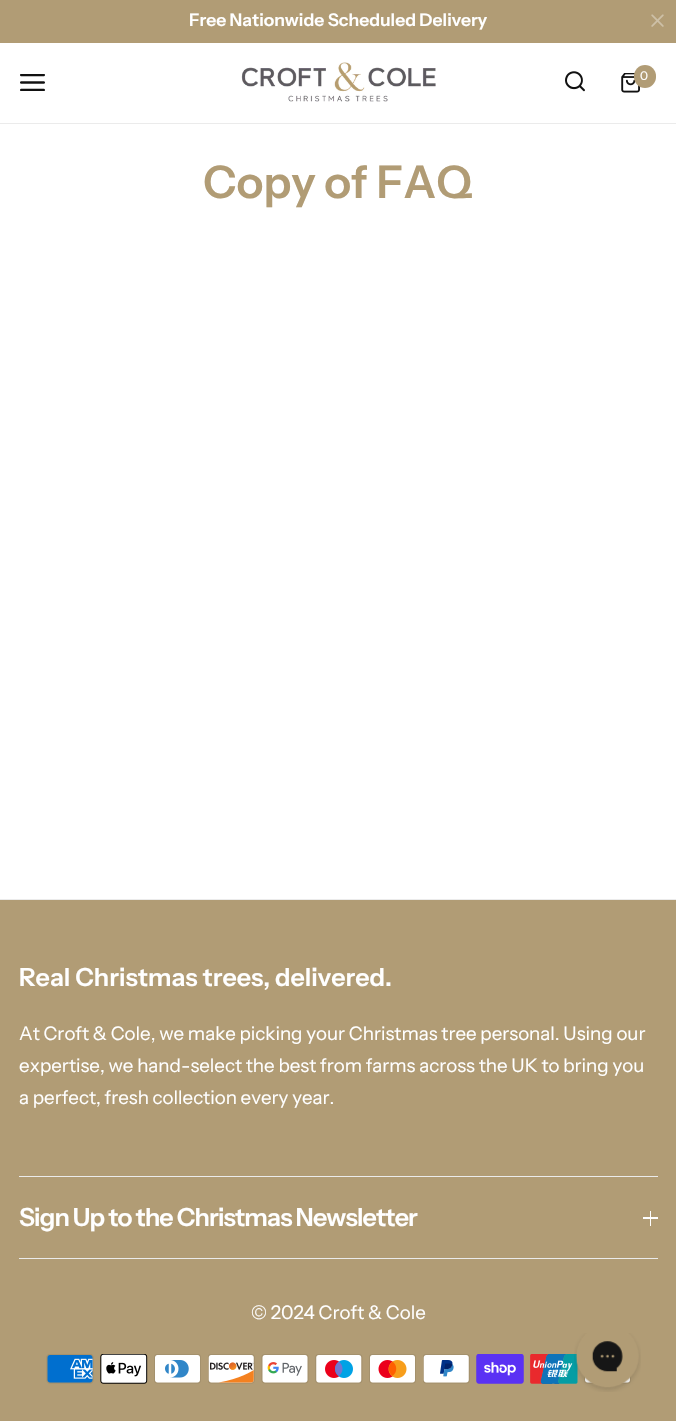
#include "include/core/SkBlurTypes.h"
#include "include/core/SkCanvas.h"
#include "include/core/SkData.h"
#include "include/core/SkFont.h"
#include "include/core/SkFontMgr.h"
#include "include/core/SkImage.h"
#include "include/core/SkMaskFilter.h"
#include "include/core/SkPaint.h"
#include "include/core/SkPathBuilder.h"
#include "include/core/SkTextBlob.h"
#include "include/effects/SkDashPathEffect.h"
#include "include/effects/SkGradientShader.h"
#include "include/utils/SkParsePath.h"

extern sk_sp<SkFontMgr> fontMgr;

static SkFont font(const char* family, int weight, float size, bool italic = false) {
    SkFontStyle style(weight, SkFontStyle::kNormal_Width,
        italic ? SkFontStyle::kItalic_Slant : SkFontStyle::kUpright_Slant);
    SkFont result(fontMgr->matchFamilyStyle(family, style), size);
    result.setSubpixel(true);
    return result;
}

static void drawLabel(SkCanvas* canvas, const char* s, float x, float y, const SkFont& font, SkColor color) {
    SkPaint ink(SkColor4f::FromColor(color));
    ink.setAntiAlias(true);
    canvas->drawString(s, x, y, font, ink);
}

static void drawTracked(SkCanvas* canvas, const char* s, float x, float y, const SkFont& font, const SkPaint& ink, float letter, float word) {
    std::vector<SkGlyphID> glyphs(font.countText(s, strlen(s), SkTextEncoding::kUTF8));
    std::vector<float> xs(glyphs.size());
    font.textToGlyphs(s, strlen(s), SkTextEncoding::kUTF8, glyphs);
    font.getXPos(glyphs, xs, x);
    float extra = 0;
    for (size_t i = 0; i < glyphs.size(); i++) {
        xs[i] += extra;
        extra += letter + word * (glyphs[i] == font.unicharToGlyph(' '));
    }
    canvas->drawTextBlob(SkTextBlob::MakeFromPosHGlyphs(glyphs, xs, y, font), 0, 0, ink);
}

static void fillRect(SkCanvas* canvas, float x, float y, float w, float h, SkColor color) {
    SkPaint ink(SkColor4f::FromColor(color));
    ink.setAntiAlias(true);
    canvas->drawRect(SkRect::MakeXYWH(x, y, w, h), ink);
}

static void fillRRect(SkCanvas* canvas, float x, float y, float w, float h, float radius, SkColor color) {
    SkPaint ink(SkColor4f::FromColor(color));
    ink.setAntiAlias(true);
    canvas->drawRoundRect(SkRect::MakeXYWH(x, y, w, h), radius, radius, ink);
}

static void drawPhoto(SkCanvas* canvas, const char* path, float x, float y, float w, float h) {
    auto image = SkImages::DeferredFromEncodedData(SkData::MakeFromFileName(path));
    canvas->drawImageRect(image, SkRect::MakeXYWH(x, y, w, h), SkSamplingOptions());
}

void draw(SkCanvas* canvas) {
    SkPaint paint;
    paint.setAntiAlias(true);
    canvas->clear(0xFFFFFFFF);
    fillRect(canvas, 0, 0, 676, 43, 0xFFB19C75);
    SkFont font1 = font("Instrument Sans", 600, 17.5f);
    drawLabel(canvas, "Free Nationwide Scheduled Delivery", 189, 26, font1, 0xFFFFFFFF);
    drawPhoto(canvas, "assets/img1.png", 651, 14, 13, 13);
    fillRect(canvas, 0, 123, 676, 1, 0xFFEBEBEB);
    drawPhoto(canvas, "assets/img2.png", 20, 74, 25, 17);
    drawPhoto(canvas, "assets/img3.png", 241, 62, 195, 40);
    drawPhoto(canvas, "assets/img4.png", 565, 71, 20, 21);
    drawPhoto(canvas, "assets/img5.png", 621, 73, 19, 20);
    fillRRect(canvas, 634, 65, 22, 23, 11, 0xFFB19C75);
    SkFont font2 = font("Instrument Sans", 400, 12);
    drawLabel(canvas, "0", 640, 80, font2, 0xFFFFFFFF);
    SkFont font3 = font("Instrument Sans", 600, 45);
    drawLabel(canvas, "Copy of FAQ", 203, 198, font3, 0xFFB19C75);
    fillRect(canvas, 0, 900, 676, 521, 0xFFB19C75);
    fillRect(canvas, 0, 899, 676, 1, 0xFFEBEBEB);
    fillRect(canvas, 19, 1176, 639, 1, 0xFFEBEBEB);
    SkFont font4 = font("Instrument Sans", 600, 25);
    drawLabel(canvas, "Real Christmas trees, delivered.", 19, 986, font4, 0xFFFFFFFF);
    SkFont font5 = font("Instrument Sans", 400, 18.75f);
    drawLabel(canvas, "At Croft & Cole, we make picking your Christmas tree personal. Using our", 19, 1040, font5, 0xFFFFFFFF);
    drawLabel(canvas, "expertise, we hand-select the best from farms across the UK to bring you", 19, 1072, font5, 0xFFFFFFFF);
    drawLabel(canvas, "a perfect, fresh collection every year.", 19, 1104, font5, 0xFFFFFFFF);
    paint.setColor(0xFFFFFFFF);
    drawTracked(canvas, "Sign Up to the Christmas Newsletter", 19, 1226, font4, paint, -0.85f, 0);
    fillRect(canvas, 650, 1211, 1, 15, 0xFFFFFFFF);
    fillRect(canvas, 643, 1217, 15, 2, 0xFFFFFFFF);
    fillRect(canvas, 19, 1258, 639, 1, 0xFFEBEBEB);
    drawLabel(canvas, "© 2024 Croft & Cole", 251, 1319, font5, 0xFFFFFFFF);
    drawPhoto(canvas, "assets/img6.png", 46, 1354, 48, 30);
    drawPhoto(canvas, "assets/img7.png", 100, 1354, 48, 30);
    drawPhoto(canvas, "assets/img8.png", 154, 1354, 47, 30);
    drawPhoto(canvas, "assets/img9.png", 208, 1354, 47, 30);
    drawPhoto(canvas, "assets/img10.png", 261, 1354, 48, 30);
    drawPhoto(canvas, "assets/img11.png", 315, 1354, 48, 30);
    drawPhoto(canvas, "assets/img12.png", 369, 1354, 47, 30);
    drawPhoto(canvas, "assets/img13.png", 423, 1354, 47, 30);
    drawPhoto(canvas, "assets/img14.png", 476, 1354, 48, 30);
    drawPhoto(canvas, "assets/img15.png", 530, 1354, 48, 30);
    drawPhoto(canvas, "assets/img16.png", 584, 1375, 47, 9);
    drawPhoto(canvas, "assets/img17.png", 574, 1333, 67, 59);
}
